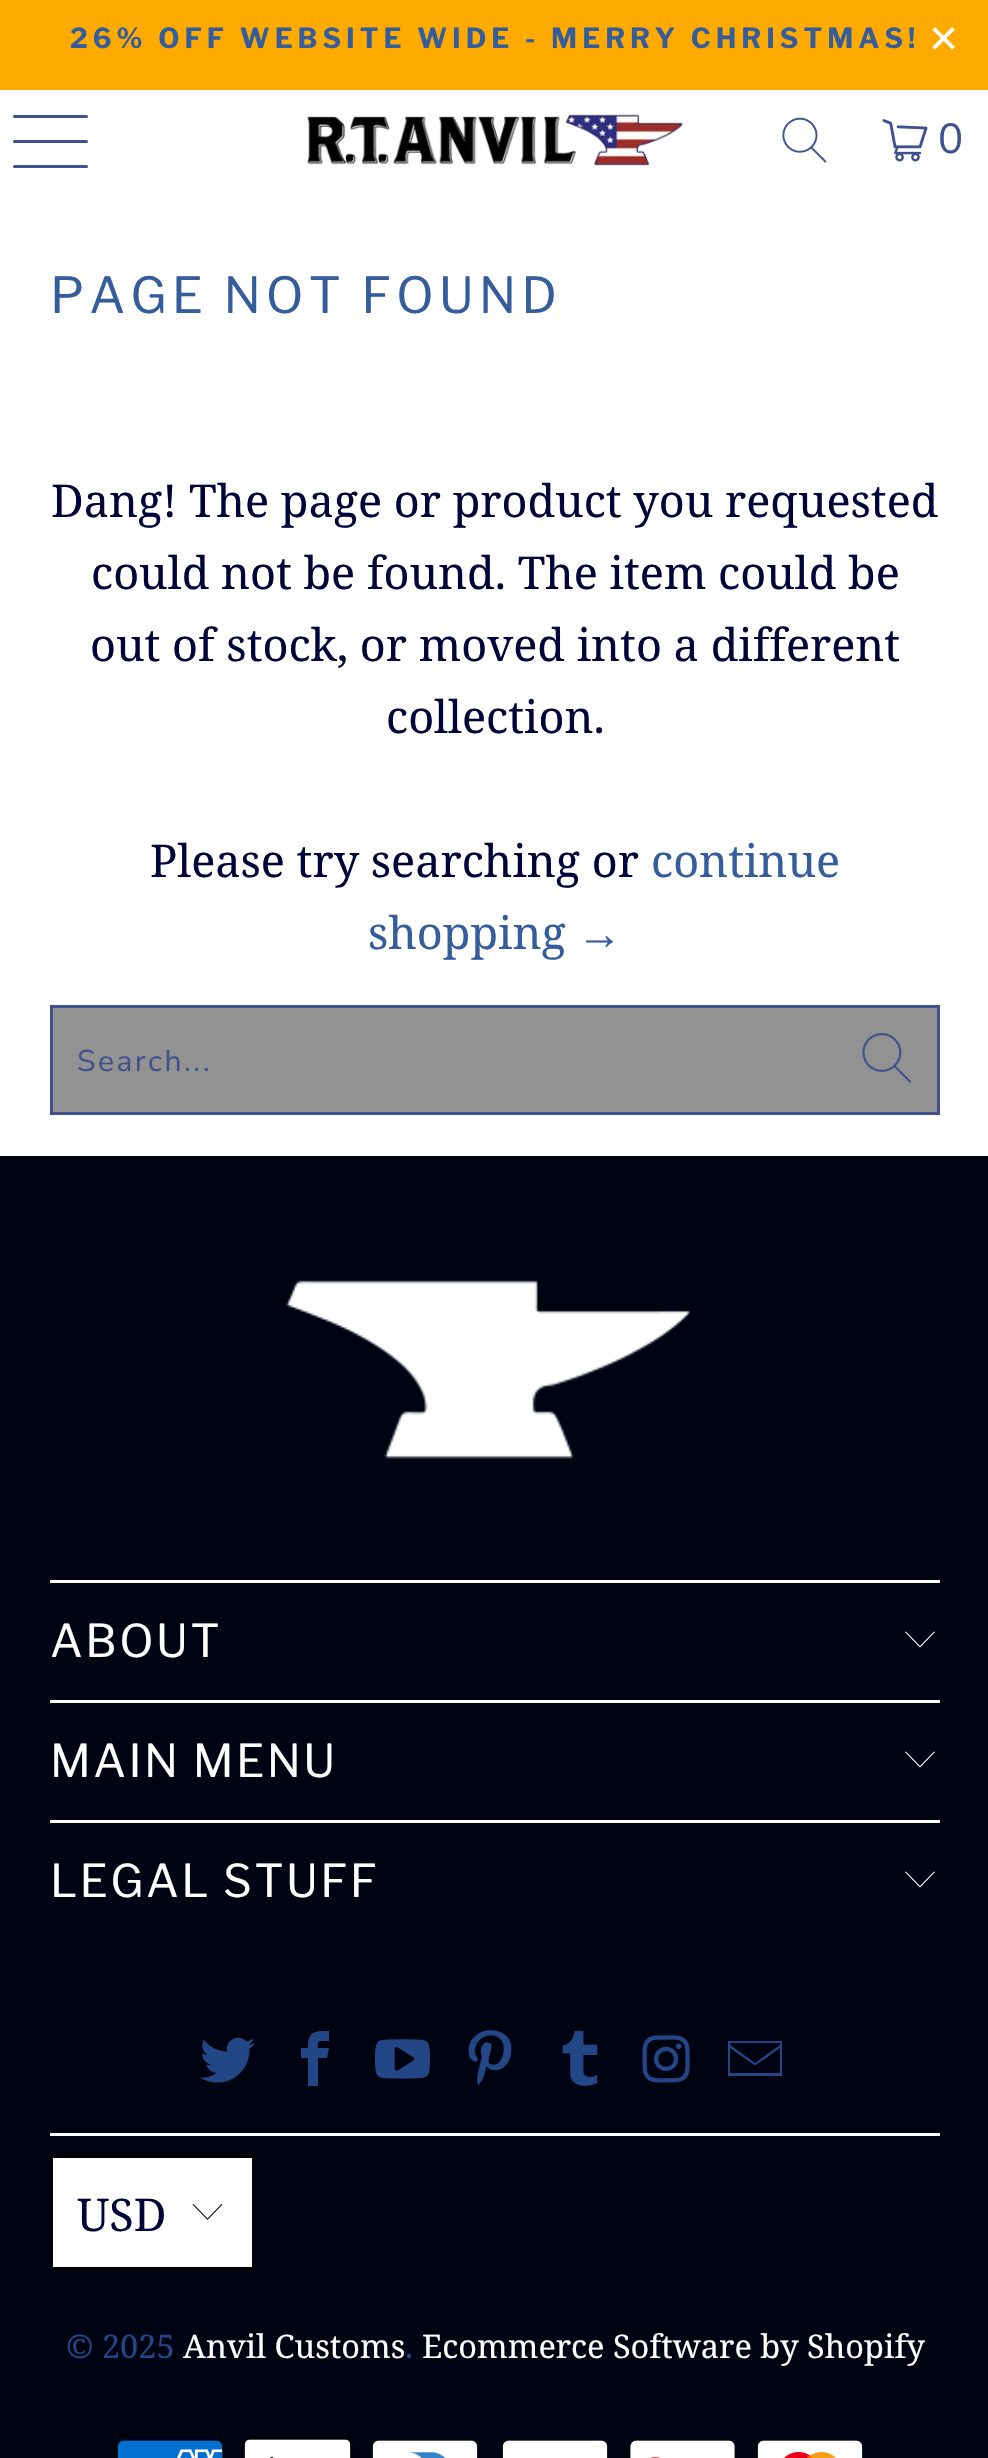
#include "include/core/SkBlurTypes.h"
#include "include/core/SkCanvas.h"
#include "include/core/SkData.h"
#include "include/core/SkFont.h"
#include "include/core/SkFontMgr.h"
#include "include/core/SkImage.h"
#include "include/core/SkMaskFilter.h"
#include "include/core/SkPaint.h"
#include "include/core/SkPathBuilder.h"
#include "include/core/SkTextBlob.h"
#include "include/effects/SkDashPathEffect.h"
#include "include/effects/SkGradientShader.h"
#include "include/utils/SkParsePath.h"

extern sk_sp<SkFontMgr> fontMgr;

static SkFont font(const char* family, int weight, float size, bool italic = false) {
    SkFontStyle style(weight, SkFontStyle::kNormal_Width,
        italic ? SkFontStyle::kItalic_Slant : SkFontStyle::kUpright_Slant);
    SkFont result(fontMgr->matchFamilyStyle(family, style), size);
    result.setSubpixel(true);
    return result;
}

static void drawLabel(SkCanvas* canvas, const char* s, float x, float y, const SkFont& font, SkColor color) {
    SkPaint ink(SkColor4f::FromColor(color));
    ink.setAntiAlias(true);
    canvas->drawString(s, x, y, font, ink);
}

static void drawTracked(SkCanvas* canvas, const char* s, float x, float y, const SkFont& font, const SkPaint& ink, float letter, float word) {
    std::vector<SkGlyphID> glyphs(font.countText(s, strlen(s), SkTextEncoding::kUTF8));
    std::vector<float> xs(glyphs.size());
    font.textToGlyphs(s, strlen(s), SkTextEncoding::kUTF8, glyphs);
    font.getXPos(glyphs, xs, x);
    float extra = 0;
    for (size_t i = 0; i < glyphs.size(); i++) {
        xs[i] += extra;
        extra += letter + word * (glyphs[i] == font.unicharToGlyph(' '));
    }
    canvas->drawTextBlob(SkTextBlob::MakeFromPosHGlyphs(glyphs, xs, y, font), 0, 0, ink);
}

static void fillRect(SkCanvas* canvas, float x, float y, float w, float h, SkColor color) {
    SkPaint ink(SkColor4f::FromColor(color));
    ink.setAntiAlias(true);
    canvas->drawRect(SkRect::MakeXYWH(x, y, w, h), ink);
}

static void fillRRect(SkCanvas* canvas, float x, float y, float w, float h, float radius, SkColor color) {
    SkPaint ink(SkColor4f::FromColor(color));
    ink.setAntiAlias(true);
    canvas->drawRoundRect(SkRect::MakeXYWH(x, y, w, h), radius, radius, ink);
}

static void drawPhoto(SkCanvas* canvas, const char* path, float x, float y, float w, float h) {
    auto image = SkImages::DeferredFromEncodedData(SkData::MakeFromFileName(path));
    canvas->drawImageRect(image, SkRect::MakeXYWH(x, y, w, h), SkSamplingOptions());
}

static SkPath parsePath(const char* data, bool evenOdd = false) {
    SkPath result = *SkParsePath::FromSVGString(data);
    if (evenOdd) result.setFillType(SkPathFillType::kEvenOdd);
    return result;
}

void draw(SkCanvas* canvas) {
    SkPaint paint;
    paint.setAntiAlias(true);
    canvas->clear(0xFFFFFFFF);
    fillRect(canvas, 0, 0, 988, 90, 0xFFFFAA01);
    SkFont font1 = font("Libre Franklin", 700, 27.5f);
    paint.setColor(0xFF355D9B);
    drawTracked(canvas, "26% OFF WEBSITE WIDE - MERRY CHRISTMAS!", 70, 48, font1, paint, 5, 0);
    SkFont font2 = font("Liberation Sans", 400, 50);
    paint.setColor(0xFFFFFFFF);
    drawTracked(canvas, "×", 929, 55, font2, paint, 5, 0);
    fillRRect(canvas, 13, 115, 75, 3, 1.5f, 0xFF3F528D);
    fillRRect(canvas, 13, 140, 75, 3, 1.5f, 0xFF3F528D);
    fillRRect(canvas, 13, 165, 75, 3, 1.5f, 0xFF3F528D);
    drawPhoto(canvas, "assets/img1.png", 307, 114, 376, 52);
    drawPhoto(canvas, "assets/img2.png", 782, 117, 45, 46);
    drawPhoto(canvas, "assets/img3.png", 882, 119, 46, 43);
    SkFont font3 = font("Nunito", 400, 42);
    paint.setColor(0xFF3F528D);
    drawTracked(canvas, "0", 938, 153, font3, paint, 2.5f, 0);
    SkFont font4 = font("Libre Franklin", 400, 49.5f);
    paint.setColor(0xFF355D9B);
    drawTracked(canvas, "PAGE NOT FOUND", 50, 313, font4, paint, 5, 0);
    SkFont font5 = font("Noto Serif", 400, 45);
    drawLabel(canvas, "Dang! The page or product you requested", 51, 517, font5, 0xFF000438);
    drawLabel(canvas, "could not be found. The item could be", 91, 589, font5, 0xFF000438);
    drawLabel(canvas, "out of stock, or moved into a different", 90, 661, font5, 0xFF000438);
    drawLabel(canvas, "collection.", 386, 733, font5, 0xFF000438);
    drawLabel(canvas, "Please try searching or", 150, 877, font5, 0xFF000438);
    drawLabel(canvas, "continue", 651, 877, font5, 0xFF355D9B);
    drawLabel(canvas, "shopping", 368, 949, font5, 0xFF355D9B);
    SkFont font6 = font("Liberation Serif", 400, 45);
    drawLabel(canvas, "→", 577, 949, font6, 0xFF355D9B);
    paint.setColor(0xFF929292);
    canvas->drawRect(SkRect::MakeXYWH(51.5f, 1006.5f, 887, 107), paint);
    paint.setStroke(true);
    paint.setStrokeWidth(3);
    paint.setColor(0xFF3F528D);
    canvas->drawRect(SkRect::MakeXYWH(51.5f, 1006.5f, 887, 107), paint);
    SkFont font7 = font("Nunito", 400, 30);
    paint.setStroke(false);
    drawTracked(canvas, "Search...", 77, 1071, font7, paint, 2.5f, 0);
    drawPhoto(canvas, "assets/img4.png", 862, 1033, 50, 50);
    fillRect(canvas, 0, 1156, 988, 1302, 0xFF000412);
    drawPhoto(canvas, "assets/img5.png", 286, 1280, 404, 179);
    fillRect(canvas, 50, 1580, 890, 3, 0xFFFFFFFF);
    SkFont font8 = font("Libre Franklin", 400, 45);
    paint.setColor(0xFFFFFFFF);
    drawTracked(canvas, "ABOUT", 50, 1657, font8, paint, 2.5f, 0);
    canvas->drawPath(parsePath("M920 1647.5L905 1632L906 1631.5L920 1646L934 1631.5L935 1632Z"), paint);
    fillRect(canvas, 50, 1700, 890, 3, 0xFFFFFFFF);
    drawTracked(canvas, "MAIN MENU", 50, 1777, font8, paint, 2.5f, 0);
    canvas->drawPath(parsePath("M920 1767.5L905 1752L906 1751.5L920 1766L934 1751.5L935 1752Z"), paint);
    fillRect(canvas, 50, 1820, 890, 3, 0xFFFFFFFF);
    drawTracked(canvas, "LEGAL STUFF", 50, 1897, font8, paint, 2.5f, 0);
    canvas->drawPath(parsePath("M920 1887.5L905 1872L906 1871.5L920 1886L934 1871.5L935 1872Z"), paint);
    drawPhoto(canvas, "assets/img6.png", 200, 2037, 55, 46);
    paint.setColor(0xFF234686);
    canvas->drawPath(parsePath("M320 2041H329V2031C314 2031 308 2031 308 2048H301V2058H308V2086H318V2058H327L329 2048H318C318 2047 317 2041 320 2041Z"), paint);
    drawPhoto(canvas, "assets/img7.png", 375, 2039, 55, 40);
    drawPhoto(canvas, "assets/img8.png", 468, 2030, 44, 56);
    drawPhoto(canvas, "assets/img9.png", 562, 2030, 36, 56);
    drawPhoto(canvas, "assets/img10.png", 642, 2035, 48, 48);
    canvas->drawPath(parsePath("M728 2041V2076H782V2041ZM780 2043V2045L755 2063L730 2045V2043ZM730 2073V2048L750 2062C756 2066 754 2066 760 2062L780 2048V2073Z"), paint);
    fillRect(canvas, 50, 2133, 890, 3, 0xFFFFFFFF);
    paint.setColor(0xFFFFFFFF);
    canvas->drawRect(SkRect::MakeXYWH(51.5f, 2156.5f, 202, 112), paint);
    paint.setStroke(true);
    paint.setColor(0xFF000000);
    canvas->drawRect(SkRect::MakeXYWH(51.5f, 2156.5f, 202, 112), paint);
    drawLabel(canvas, "USD", 77, 2231, font5, 0xFF000438);
    paint.setStroke(false);
    paint.setColor(0xFF000438);
    canvas->drawPath(parsePath("M207.5 2220L192.5 2204.5L193.5 2204L207.5 2218.5L221.5 2204L222.5 2204.5Z"), paint);
    SkFont font9 = font("Noto Serif", 400, 32.5f);
    drawLabel(canvas, "© 2025", 66, 2358, font9, 0xFF234686);
    drawLabel(canvas, "Anvil Customs", 183, 2358, font9, 0xFFFFFFFF);
    drawLabel(canvas, ".", 405, 2358, font9, 0xFF234686);
    drawLabel(canvas, "Ecommerce Software by Shopify", 422, 2358, font9, 0xFFFFFFFF);
    drawPhoto(canvas, "assets/img11.png", 117, 2440, 106, 18);
    drawPhoto(canvas, "assets/img12.png", 243, 2437, 110, 21);
    drawPhoto(canvas, "assets/img13.png", 372, 2440, 106, 18);
    drawPhoto(canvas, "assets/img14.png", 502, 2440, 106, 18);
    drawPhoto(canvas, "assets/img15.png", 630, 2440, 105, 18);
    drawPhoto(canvas, "assets/img16.png", 757, 2440, 106, 18);
}
